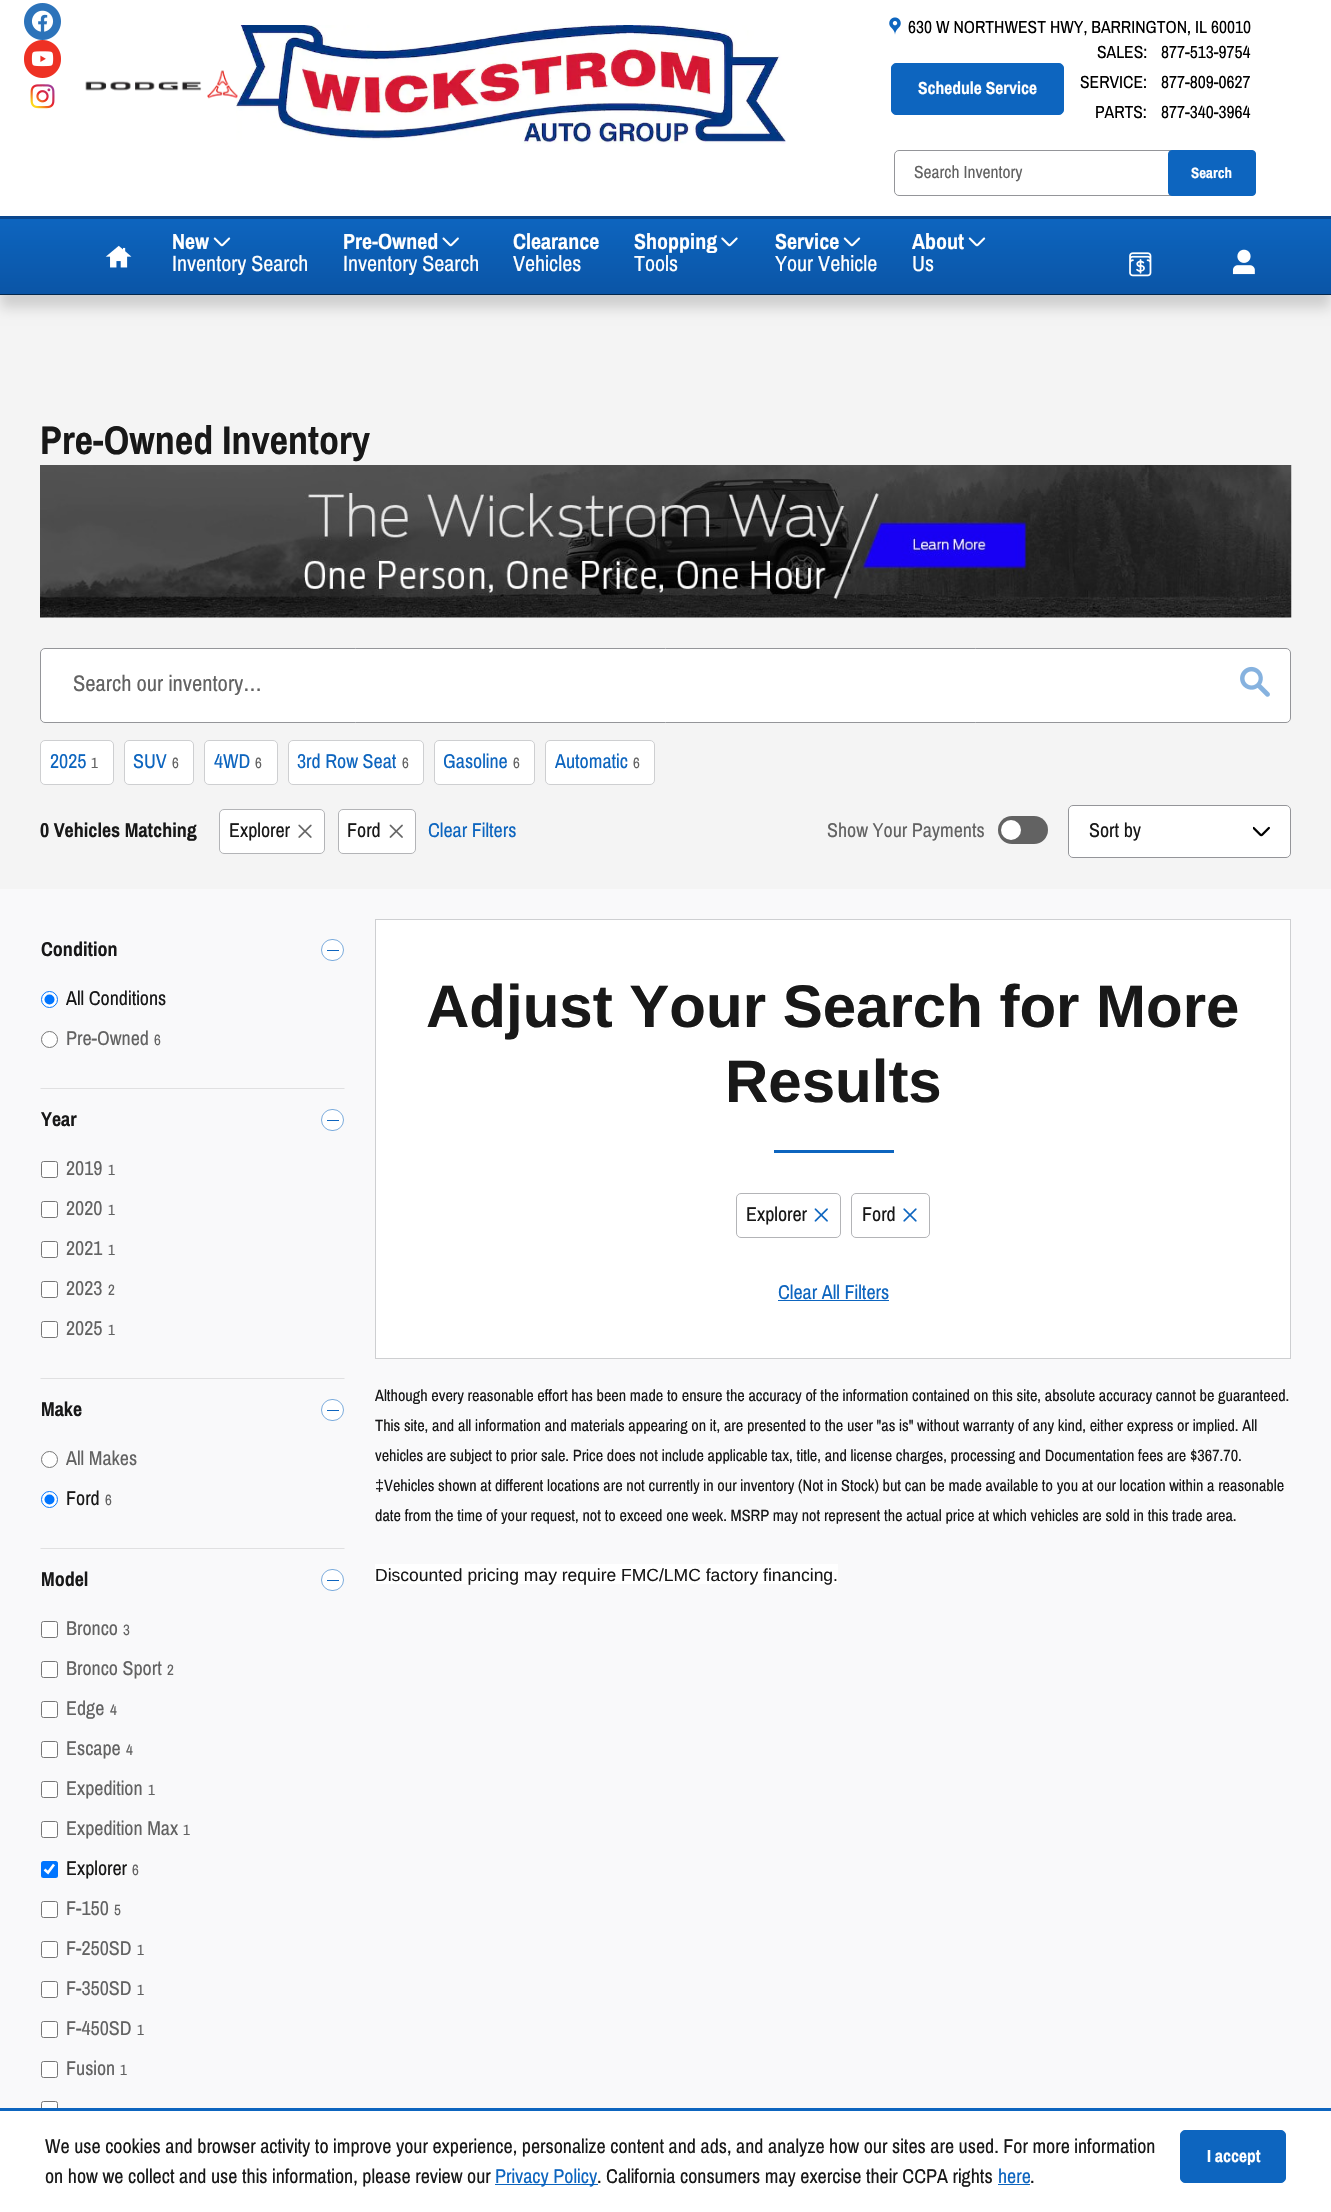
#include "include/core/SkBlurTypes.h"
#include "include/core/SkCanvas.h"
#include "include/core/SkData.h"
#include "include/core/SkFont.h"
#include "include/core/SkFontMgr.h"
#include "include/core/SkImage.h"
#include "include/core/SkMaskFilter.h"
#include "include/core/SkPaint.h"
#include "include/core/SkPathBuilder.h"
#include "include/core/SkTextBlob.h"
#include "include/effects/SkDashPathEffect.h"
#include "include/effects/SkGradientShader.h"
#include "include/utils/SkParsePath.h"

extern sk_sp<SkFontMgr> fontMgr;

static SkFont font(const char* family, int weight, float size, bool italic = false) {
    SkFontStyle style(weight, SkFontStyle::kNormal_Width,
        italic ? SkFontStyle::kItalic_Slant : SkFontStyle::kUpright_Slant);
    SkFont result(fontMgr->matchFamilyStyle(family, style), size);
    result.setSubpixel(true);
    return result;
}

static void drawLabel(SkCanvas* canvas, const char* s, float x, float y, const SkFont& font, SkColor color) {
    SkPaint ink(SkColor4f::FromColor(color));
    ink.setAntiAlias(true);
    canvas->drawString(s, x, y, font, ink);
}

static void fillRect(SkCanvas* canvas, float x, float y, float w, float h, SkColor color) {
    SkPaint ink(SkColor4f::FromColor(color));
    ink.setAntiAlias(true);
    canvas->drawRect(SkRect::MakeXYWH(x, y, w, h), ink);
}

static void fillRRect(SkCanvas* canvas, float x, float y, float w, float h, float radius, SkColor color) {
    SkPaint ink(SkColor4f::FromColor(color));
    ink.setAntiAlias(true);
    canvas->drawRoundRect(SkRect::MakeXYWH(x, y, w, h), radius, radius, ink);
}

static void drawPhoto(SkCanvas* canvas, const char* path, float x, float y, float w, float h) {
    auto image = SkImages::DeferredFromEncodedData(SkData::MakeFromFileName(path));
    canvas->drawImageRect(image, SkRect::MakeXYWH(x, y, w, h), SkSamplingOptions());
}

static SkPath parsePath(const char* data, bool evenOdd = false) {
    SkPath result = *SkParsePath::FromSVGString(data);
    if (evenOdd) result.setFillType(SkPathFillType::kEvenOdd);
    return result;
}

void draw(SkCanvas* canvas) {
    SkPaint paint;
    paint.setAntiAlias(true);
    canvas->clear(0xFFF9F9FA);
    fillRect(canvas, 0, 295, 1331, 594, 0xFFF4F4F4);
    paint.setColor(0x26000000);
    paint.setMaskFilter(SkMaskFilter::MakeBlur(kNormal_SkBlurStyle, 6));
    canvas->drawRect(SkRect::MakeXYWH(0, 229, 1331, 79), paint);
    paint.setMaskFilter(nullptr);
    fillRect(canvas, 0, 0, 1331, 216, 0xFFFFFFFF);
    drawPhoto(canvas, "assets/img1.png", 24, 3, 37, 37);
    drawPhoto(canvas, "assets/img2.png", 24, 40, 37, 38);
    drawPhoto(canvas, "assets/img3.png", 30, 84, 25, 25);
    drawPhoto(canvas, "assets/img5.png", 236, 25, 550, 119);
    drawPhoto(canvas, "assets/img4.png", 85, 70, 153, 29);
    drawPhoto(canvas, "assets/img6.png", 889, 17, 12, 18);
    SkFont font1 = font("Archivo Narrow", 400, 17.5f);
    drawLabel(canvas, "630 W NORTHWEST HWY, BARRINGTON, IL 60010", 908, 33, font1, 0xFF000000);
    drawLabel(canvas, "SALES:", 1097, 58, font1, 0xFF000000);
    drawLabel(canvas, "877-513-9754", 1161, 58, font1, 0xFF000000);
    drawLabel(canvas, "SERVICE:", 1080, 88, font1, 0xFF000000);
    drawLabel(canvas, "877-809-0627", 1161, 88, font1, 0xFF000000);
    drawLabel(canvas, "PARTS:", 1095, 118, font1, 0xFF000000);
    drawLabel(canvas, "877-340-3964", 1161, 118, font1, 0xFF000000);
    paint.setColor(0xFF0D65BF);
    canvas->drawRoundRect(SkRect::MakeXYWH(891.5f, 63.5f, 172, 51), 4.5f, 4.5f, paint);
    paint.setStroke(true);
    paint.setStrokeWidth(1);
    canvas->drawRoundRect(SkRect::MakeXYWH(891.5f, 63.5f, 172, 51), 4.5f, 4.5f, paint);
    SkFont font2 = font("Archivo Narrow", 700, 17.5f);
    drawLabel(canvas, "Schedule Service", 918, 94, font2, 0xFFFFFFFF);
    paint.setColor(0xFF949599);
    canvas->drawRoundRect(SkRect::MakeXYWH(894.5f, 150.5f, 361, 45), 4.5f, 4.5f, paint);
    drawLabel(canvas, "Search Inventory", 914, 178, font1, 0xFF626262);
    paint.setStroke(false);
    paint.setColor(0xFF0D65BF);
    canvas->drawRoundRect(SkRect::MakeXYWH(1168.5f, 150.5f, 87, 45), 3.5f, 3.5f, paint);
    paint.setStroke(true);
    canvas->drawRoundRect(SkRect::MakeXYWH(1168.5f, 150.5f, 87, 45), 3.5f, 3.5f, paint);
    SkFont font3 = font("Archivo Narrow", 700, 15);
    drawLabel(canvas, "Search", 1191, 178, font3, 0xFFFFFFFF);
    paint.setStroke(false);
    {
        const SkColor colors[] = {0xFF0D65BF, 0xFF0B55A6};
        const float stops[] = {0, 1};
        const SkPoint ends[] = {{666, 219}, {666, 294}};
        paint.setShader(SkGradientShader::MakeLinear(ends, colors, stops, 2, SkTileMode::kClamp));
        paint.setAlpha(255);
    }
    canvas->drawRect(SkRect::MakeXYWH(0, 219, 1331, 75), paint);
    fillRect(canvas, 0, 216, 1331, 3, 0xFF0A468D);
    fillRect(canvas, 0, 294, 1331, 1, 0xFF05284C);
    drawPhoto(canvas, "assets/img7.png", 105, 245, 27, 23);
    SkFont font4 = font("Archivo Narrow", 700, 22);
    drawLabel(canvas, "New", 172, 249, font4, 0xFFFFFFFF);
    drawPhoto(canvas, "assets/img8.png", 213, 237, 18, 10);
    SkFont font5 = font("Archivo Narrow", 400, 22);
    drawLabel(canvas, "Inventory Search", 172, 271, font5, 0xFFFFFFFF);
    drawLabel(canvas, "Pre-Owned", 343, 249, font4, 0xFFFFFFFF);
    drawPhoto(canvas, "assets/img9.png", 442, 237, 17, 10);
    drawLabel(canvas, "Inventory Search", 343, 271, font5, 0xFFFFFFFF);
    drawLabel(canvas, "Clearance", 513, 249, font4, 0xFFFFFFFF);
    drawLabel(canvas, "Vehicles", 513, 271, font5, 0xFFFFFFFF);
    drawLabel(canvas, "Shopping", 634, 249, font4, 0xFFFFFFFF);
    drawPhoto(canvas, "assets/img10.png", 721, 237, 17, 10);
    drawLabel(canvas, "Tools", 634, 271, font5, 0xFFFFFFFF);
    drawLabel(canvas, "Service", 775, 249, font4, 0xFFFFFFFF);
    drawPhoto(canvas, "assets/img8.png", 843, 237, 18, 10);
    drawLabel(canvas, "Your Vehicle", 775, 271, font5, 0xFFFFFFFF);
    drawLabel(canvas, "About", 912, 249, font4, 0xFFFFFFFF);
    drawPhoto(canvas, "assets/img8.png", 968, 237, 18, 10);
    drawLabel(canvas, "Us", 912, 271, font5, 0xFFFFFFFF);
    drawPhoto(canvas, "assets/img11.png", 1129, 252, 23, 25);
    drawPhoto(canvas, "assets/img12.png", 1232, 249, 23, 26);
    SkFont font6 = font("Archivo Narrow", 700, 40);
    drawLabel(canvas, "Pre-Owned Inventory", 40, 454, font6, 0xFF181818);
    drawPhoto(canvas, "assets/img13.png", 40, 465, 1252, 153);
    paint.setShader(nullptr);
    paint.setColor(0xFFFFFFFF);
    canvas->drawRoundRect(SkRect::MakeXYWH(40.5f, 648.5f, 1250, 74), 4.5f, 4.5f, paint);
    paint.setStroke(true);
    paint.setColor(0xFF949599);
    canvas->drawRoundRect(SkRect::MakeXYWH(40.5f, 648.5f, 1250, 74), 4.5f, 4.5f, paint);
    SkFont font7 = font("Archivo Narrow", 400, 22.5f);
    drawLabel(canvas, "Search our inventory…", 73, 691, font7, 0xFF626262);
    drawPhoto(canvas, "assets/img14.png", 1240, 666, 30, 31);
    paint.setStroke(false);
    paint.setColor(0xFFFFFFFF);
    canvas->drawRoundRect(SkRect::MakeXYWH(40.5f, 740.5f, 73, 44), 4.5f, 4.5f, paint);
    paint.setStroke(true);
    paint.setColor(0xFFCECFD1);
    canvas->drawRoundRect(SkRect::MakeXYWH(40.5f, 740.5f, 73, 44), 4.5f, 4.5f, paint);
    SkFont font8 = font("Archivo Narrow", 400, 20);
    drawLabel(canvas, "2025", 50, 768, font8, 0xFF0D65BF);
    SkFont font9 = font("Archivo Narrow", 400, 15);
    drawLabel(canvas, "1", 91, 768, font9, 0xFF626262);
    paint.setStroke(false);
    paint.setColor(0xFFFFFFFF);
    canvas->drawRoundRect(SkRect::MakeXYWH(124.5f, 740.5f, 69, 44), 4.5f, 4.5f, paint);
    paint.setStroke(true);
    paint.setColor(0xFFCECFD1);
    canvas->drawRoundRect(SkRect::MakeXYWH(124.5f, 740.5f, 69, 44), 4.5f, 4.5f, paint);
    drawLabel(canvas, "SUV", 133, 768, font8, 0xFF0D65BF);
    drawLabel(canvas, "6", 172, 768, font9, 0xFF626262);
    paint.setStroke(false);
    paint.setColor(0xFFFFFFFF);
    canvas->drawRoundRect(SkRect::MakeXYWH(204.5f, 740.5f, 73, 44), 4.5f, 4.5f, paint);
    paint.setStroke(true);
    paint.setColor(0xFFCECFD1);
    canvas->drawRoundRect(SkRect::MakeXYWH(204.5f, 740.5f, 73, 44), 4.5f, 4.5f, paint);
    drawLabel(canvas, "4WD", 214, 768, font8, 0xFF0D65BF);
    drawLabel(canvas, "6", 255, 768, font9, 0xFF626262);
    paint.setStroke(false);
    paint.setColor(0xFFFFFFFF);
    canvas->drawRoundRect(SkRect::MakeXYWH(288.5f, 740.5f, 135, 44), 4.5f, 4.5f, paint);
    paint.setStroke(true);
    paint.setColor(0xFFCECFD1);
    canvas->drawRoundRect(SkRect::MakeXYWH(288.5f, 740.5f, 135, 44), 4.5f, 4.5f, paint);
    drawLabel(canvas, "3rd Row Seat", 297, 768, font8, 0xFF0D65BF);
    drawLabel(canvas, "6", 402, 768, font9, 0xFF626262);
    paint.setStroke(false);
    paint.setColor(0xFFFFFFFF);
    canvas->drawRoundRect(SkRect::MakeXYWH(434.5f, 740.5f, 100, 44), 4.5f, 4.5f, paint);
    paint.setStroke(true);
    paint.setColor(0xFFCECFD1);
    canvas->drawRoundRect(SkRect::MakeXYWH(434.5f, 740.5f, 100, 44), 4.5f, 4.5f, paint);
    drawLabel(canvas, "Gasoline", 443, 768, font8, 0xFF0D65BF);
    drawLabel(canvas, "6", 513, 768, font9, 0xFF626262);
    paint.setStroke(false);
    paint.setColor(0xFFFFFFFF);
    canvas->drawRoundRect(SkRect::MakeXYWH(545.5f, 740.5f, 109, 44), 4.5f, 4.5f, paint);
    paint.setStroke(true);
    paint.setColor(0xFFCECFD1);
    canvas->drawRoundRect(SkRect::MakeXYWH(545.5f, 740.5f, 109, 44), 4.5f, 4.5f, paint);
    drawLabel(canvas, "Automatic", 555, 768, font8, 0xFF0D65BF);
    drawLabel(canvas, "6", 633, 768, font9, 0xFF626262);
    SkFont font10 = font("Archivo Narrow", 700, 20);
    drawLabel(canvas, "0 Vehicles Matching", 40, 837, font10, 0xFF181818);
    paint.setStroke(false);
    paint.setColor(0xFFFFFFFF);
    canvas->drawRoundRect(SkRect::MakeXYWH(219.5f, 809.5f, 105, 44), 4.5f, 4.5f, paint);
    paint.setStroke(true);
    paint.setColor(0xFFB3B4B7);
    canvas->drawRoundRect(SkRect::MakeXYWH(219.5f, 809.5f, 105, 44), 4.5f, 4.5f, paint);
    drawLabel(canvas, "Explorer", 229, 837, font8, 0xFF181818);
    drawPhoto(canvas, "assets/img15.png", 298, 824, 14, 14);
    paint.setStroke(false);
    paint.setColor(0xFFFFFFFF);
    canvas->drawRoundRect(SkRect::MakeXYWH(338.5f, 809.5f, 77, 44), 4.5f, 4.5f, paint);
    paint.setStroke(true);
    paint.setColor(0xFFB3B4B7);
    canvas->drawRoundRect(SkRect::MakeXYWH(338.5f, 809.5f, 77, 44), 4.5f, 4.5f, paint);
    drawLabel(canvas, "Ford", 347, 837, font8, 0xFF181818);
    drawPhoto(canvas, "assets/img16.png", 389, 824, 14, 14);
    drawLabel(canvas, "Clear Filters", 428, 837, font8, 0xFF0D65BF);
    drawLabel(canvas, "Show Your Payments", 827, 837, font8, 0xFF626262);
    fillRRect(canvas, 998, 816, 50, 28, 14, 0xFF626262);
    paint.setStroke(false);
    paint.setColor(0xFFFFFFFF);
    canvas->drawCircle(1011, 830, 10, paint);
    fillRRect(canvas, 1068, 805, 223, 53, 5, 0xFFFFFFFF);
    drawPhoto(canvas, "assets/img17.png", 1253, 826, 17, 11);
    paint.setStroke(true);
    paint.setColor(0xFF949599);
    canvas->drawRoundRect(SkRect::MakeXYWH(1068.5f, 805.5f, 222, 52), 4.5f, 4.5f, paint);
    drawLabel(canvas, "Sort by", 1089, 837, font8, 0xFF181818);
    paint.setStroke(false);
    paint.setColor(0xFFE0E0E1);
    canvas->drawPath(parsePath("M345 1089H40L41 1088H344Z"), paint);
    drawLabel(canvas, "Condition", 41, 956, font10, 0xFF181818);
    paint.setColor(0xFFFFFFFF);
    canvas->drawRoundRect(SkRect::MakeXYWH(321.5f, 939.5f, 22, 21), 10.5f, 10.5f, paint);
    paint.setStroke(true);
    paint.setColor(0xFF7CACDC);
    canvas->drawRoundRect(SkRect::MakeXYWH(321.5f, 939.5f, 22, 21), 10.5f, 10.5f, paint);
    fillRect(canvas, 327, 950, 12, 1, 0xFF0D65BF);
    paint.setStroke(false);
    paint.setColor(0xFFFFFFFF);
    canvas->drawCircle(49.5f, 999.5f, 8, paint);
    paint.setStroke(true);
    paint.setColor(0xFF0075FF);
    canvas->drawCircle(49.5f, 999.5f, 8, paint);
    paint.setStroke(false);
    canvas->drawCircle(49.5f, 999.5f, 5, paint);
    drawLabel(canvas, "All Conditions", 66, 1005, font8, 0xFF181818);
    paint.setColor(0xFFFFFFFF);
    canvas->drawCircle(49.5f, 1039.5f, 8, paint);
    paint.setStroke(true);
    paint.setColor(0xFF767676);
    canvas->drawCircle(49.5f, 1039.5f, 8, paint);
    drawLabel(canvas, "Pre-Owned", 66, 1045, font8, 0xFF626262);
    drawLabel(canvas, "6", 154, 1045, font9, 0xFF626262);
    paint.setStroke(false);
    paint.setColor(0xFFE0E0E1);
    canvas->drawPath(parsePath("M345 1379H40L41 1378H344Z"), paint);
    drawLabel(canvas, "Year", 41, 1126, font10, 0xFF181818);
    paint.setColor(0xFFFFFFFF);
    canvas->drawRoundRect(SkRect::MakeXYWH(321.5f, 1109.5f, 22, 21), 10.5f, 10.5f, paint);
    paint.setStroke(true);
    paint.setColor(0xFF7CACDC);
    canvas->drawRoundRect(SkRect::MakeXYWH(321.5f, 1109.5f, 22, 21), 10.5f, 10.5f, paint);
    fillRect(canvas, 327, 1120, 12, 1, 0xFF0D65BF);
    paint.setStroke(false);
    paint.setColor(0xFFFFFFFF);
    canvas->drawRoundRect(SkRect::MakeXYWH(41.5f, 1161.5f, 16, 16), 2, 2, paint);
    paint.setStroke(true);
    paint.setColor(0xFF767676);
    canvas->drawRoundRect(SkRect::MakeXYWH(41.5f, 1161.5f, 16, 16), 2, 2, paint);
    drawLabel(canvas, "2019", 66, 1175, font8, 0xFF626262);
    drawLabel(canvas, "1", 108, 1175, font9, 0xFF626262);
    paint.setStroke(false);
    paint.setColor(0xFFFFFFFF);
    canvas->drawRoundRect(SkRect::MakeXYWH(41.5f, 1201.5f, 16, 16), 2, 2, paint);
    paint.setStroke(true);
    paint.setColor(0xFF767676);
    canvas->drawRoundRect(SkRect::MakeXYWH(41.5f, 1201.5f, 16, 16), 2, 2, paint);
    drawLabel(canvas, "2020", 66, 1215, font8, 0xFF626262);
    drawLabel(canvas, "1", 108, 1215, font9, 0xFF626262);
    paint.setStroke(false);
    paint.setColor(0xFFFFFFFF);
    canvas->drawRoundRect(SkRect::MakeXYWH(41.5f, 1241.5f, 16, 16), 2, 2, paint);
    paint.setStroke(true);
    paint.setColor(0xFF767676);
    canvas->drawRoundRect(SkRect::MakeXYWH(41.5f, 1241.5f, 16, 16), 2, 2, paint);
    drawLabel(canvas, "2021", 66, 1255, font8, 0xFF626262);
    drawLabel(canvas, "1", 108, 1255, font9, 0xFF626262);
    paint.setStroke(false);
    paint.setColor(0xFFFFFFFF);
    canvas->drawRoundRect(SkRect::MakeXYWH(41.5f, 1281.5f, 16, 16), 2, 2, paint);
    paint.setStroke(true);
    paint.setColor(0xFF767676);
    canvas->drawRoundRect(SkRect::MakeXYWH(41.5f, 1281.5f, 16, 16), 2, 2, paint);
    drawLabel(canvas, "2023", 66, 1295, font8, 0xFF626262);
    drawLabel(canvas, "2", 108, 1295, font9, 0xFF626262);
    paint.setStroke(false);
    paint.setColor(0xFFFFFFFF);
    canvas->drawRoundRect(SkRect::MakeXYWH(41.5f, 1321.5f, 16, 16), 2, 2, paint);
    paint.setStroke(true);
    paint.setColor(0xFF767676);
    canvas->drawRoundRect(SkRect::MakeXYWH(41.5f, 1321.5f, 16, 16), 2, 2, paint);
    drawLabel(canvas, "2025", 66, 1335, font8, 0xFF626262);
    drawLabel(canvas, "1", 108, 1335, font9, 0xFF626262);
    paint.setStroke(false);
    paint.setColor(0xFFE0E0E1);
    canvas->drawPath(parsePath("M345 1549H40L41 1548H344Z"), paint);
    drawLabel(canvas, "Make", 41, 1416, font10, 0xFF181818);
    paint.setColor(0xFFFFFFFF);
    canvas->drawRoundRect(SkRect::MakeXYWH(321.5f, 1399.5f, 22, 21), 10.5f, 10.5f, paint);
    paint.setStroke(true);
    paint.setColor(0xFF7CACDC);
    canvas->drawRoundRect(SkRect::MakeXYWH(321.5f, 1399.5f, 22, 21), 10.5f, 10.5f, paint);
    fillRect(canvas, 327, 1410, 12, 1, 0xFF0D65BF);
    paint.setStroke(false);
    paint.setColor(0xFFFFFFFF);
    canvas->drawCircle(49.5f, 1459.5f, 8, paint);
    paint.setStroke(true);
    paint.setColor(0xFF767676);
    canvas->drawCircle(49.5f, 1459.5f, 8, paint);
    drawLabel(canvas, "All Makes", 66, 1465, font8, 0xFF626262);
    paint.setStroke(false);
    paint.setColor(0xFFFFFFFF);
    canvas->drawCircle(49.5f, 1499.5f, 8, paint);
    paint.setStroke(true);
    paint.setColor(0xFF0075FF);
    canvas->drawCircle(49.5f, 1499.5f, 8, paint);
    paint.setStroke(false);
    canvas->drawCircle(49.5f, 1499.5f, 5, paint);
    drawLabel(canvas, "Ford", 66, 1505, font8, 0xFF181818);
    drawLabel(canvas, "6", 105, 1505, font9, 0xFF626262);
    drawLabel(canvas, "Model", 41, 1586, font10, 0xFF181818);
    paint.setColor(0xFFFFFFFF);
    canvas->drawRoundRect(SkRect::MakeXYWH(321.5f, 1569.5f, 22, 21), 10.5f, 10.5f, paint);
    paint.setStroke(true);
    paint.setColor(0xFF7CACDC);
    canvas->drawRoundRect(SkRect::MakeXYWH(321.5f, 1569.5f, 22, 21), 10.5f, 10.5f, paint);
    fillRect(canvas, 327, 1580, 12, 1, 0xFF0D65BF);
    paint.setStroke(false);
    paint.setColor(0xFFFFFFFF);
    canvas->drawRoundRect(SkRect::MakeXYWH(41.5f, 1621.5f, 16, 16), 2, 2, paint);
    paint.setStroke(true);
    paint.setColor(0xFF767676);
    canvas->drawRoundRect(SkRect::MakeXYWH(41.5f, 1621.5f, 16, 16), 2, 2, paint);
    drawLabel(canvas, "Bronco", 66, 1635, font8, 0xFF626262);
    drawLabel(canvas, "3", 123, 1635, font9, 0xFF626262);
    paint.setStroke(false);
    paint.setColor(0xFFFFFFFF);
    canvas->drawRoundRect(SkRect::MakeXYWH(41.5f, 1661.5f, 16, 16), 2, 2, paint);
    paint.setStroke(true);
    paint.setColor(0xFF767676);
    canvas->drawRoundRect(SkRect::MakeXYWH(41.5f, 1661.5f, 16, 16), 2, 2, paint);
    drawLabel(canvas, "Bronco Sport", 66, 1675, font8, 0xFF626262);
    drawLabel(canvas, "2", 167, 1675, font9, 0xFF626262);
    paint.setStroke(false);
    paint.setColor(0xFFFFFFFF);
    canvas->drawRoundRect(SkRect::MakeXYWH(41.5f, 1701.5f, 16, 16), 2, 2, paint);
    paint.setStroke(true);
    paint.setColor(0xFF767676);
    canvas->drawRoundRect(SkRect::MakeXYWH(41.5f, 1701.5f, 16, 16), 2, 2, paint);
    drawLabel(canvas, "Edge", 66, 1715, font8, 0xFF626262);
    drawLabel(canvas, "4", 110, 1715, font9, 0xFF626262);
    paint.setStroke(false);
    paint.setColor(0xFFFFFFFF);
    canvas->drawRoundRect(SkRect::MakeXYWH(41.5f, 1741.5f, 16, 16), 2, 2, paint);
    paint.setStroke(true);
    paint.setColor(0xFF767676);
    canvas->drawRoundRect(SkRect::MakeXYWH(41.5f, 1741.5f, 16, 16), 2, 2, paint);
    drawLabel(canvas, "Escape", 66, 1755, font8, 0xFF626262);
    drawLabel(canvas, "4", 126, 1755, font9, 0xFF626262);
    paint.setStroke(false);
    paint.setColor(0xFFFFFFFF);
    canvas->drawRoundRect(SkRect::MakeXYWH(41.5f, 1781.5f, 16, 16), 2, 2, paint);
    paint.setStroke(true);
    paint.setColor(0xFF767676);
    canvas->drawRoundRect(SkRect::MakeXYWH(41.5f, 1781.5f, 16, 16), 2, 2, paint);
    drawLabel(canvas, "Expedition", 66, 1795, font8, 0xFF626262);
    drawLabel(canvas, "1", 148, 1795, font9, 0xFF626262);
    paint.setStroke(false);
    paint.setColor(0xFFFFFFFF);
    canvas->drawRoundRect(SkRect::MakeXYWH(41.5f, 1821.5f, 16, 16), 2, 2, paint);
    paint.setStroke(true);
    paint.setColor(0xFF767676);
    canvas->drawRoundRect(SkRect::MakeXYWH(41.5f, 1821.5f, 16, 16), 2, 2, paint);
    drawLabel(canvas, "Expedition Max", 66, 1835, font8, 0xFF626262);
    drawLabel(canvas, "1", 183, 1835, font9, 0xFF626262);
    fillRRect(canvas, 41, 1861, 17, 17, 2.5f, 0xFF0075FF);
    paint.setStrokeWidth(2.6f);
    paint.setColor(0xFFFFFFFF);
    canvas->drawPath(parsePath("M44.5 1869.5L48 1872.5L54 1864.5"), paint);
    drawLabel(canvas, "Explorer", 66, 1875, font8, 0xFF181818);
    drawLabel(canvas, "6", 132, 1875, font9, 0xFF626262);
    paint.setStroke(false);
    canvas->drawRoundRect(SkRect::MakeXYWH(41.5f, 1901.5f, 16, 16), 2, 2, paint);
    paint.setStroke(true);
    paint.setStrokeWidth(1);
    paint.setColor(0xFF767676);
    canvas->drawRoundRect(SkRect::MakeXYWH(41.5f, 1901.5f, 16, 16), 2, 2, paint);
    drawLabel(canvas, "F-150", 66, 1915, font8, 0xFF626262);
    drawLabel(canvas, "5", 114, 1915, font9, 0xFF626262);
    paint.setStroke(false);
    paint.setColor(0xFFFFFFFF);
    canvas->drawRoundRect(SkRect::MakeXYWH(41.5f, 1941.5f, 16, 16), 2, 2, paint);
    paint.setStroke(true);
    paint.setColor(0xFF767676);
    canvas->drawRoundRect(SkRect::MakeXYWH(41.5f, 1941.5f, 16, 16), 2, 2, paint);
    drawLabel(canvas, "F-250SD", 66, 1955, font8, 0xFF626262);
    drawLabel(canvas, "1", 137, 1955, font9, 0xFF626262);
    paint.setStroke(false);
    paint.setColor(0xFFFFFFFF);
    canvas->drawRoundRect(SkRect::MakeXYWH(41.5f, 1981.5f, 16, 16), 2, 2, paint);
    paint.setStroke(true);
    paint.setColor(0xFF767676);
    canvas->drawRoundRect(SkRect::MakeXYWH(41.5f, 1981.5f, 16, 16), 2, 2, paint);
    drawLabel(canvas, "F-350SD", 66, 1995, font8, 0xFF626262);
    drawLabel(canvas, "1", 137, 1995, font9, 0xFF626262);
    paint.setStroke(false);
    paint.setColor(0xFFFFFFFF);
    canvas->drawRoundRect(SkRect::MakeXYWH(41.5f, 2021.5f, 16, 16), 2, 2, paint);
    paint.setStroke(true);
    paint.setColor(0xFF767676);
    canvas->drawRoundRect(SkRect::MakeXYWH(41.5f, 2021.5f, 16, 16), 2, 2, paint);
    drawLabel(canvas, "F-450SD", 66, 2035, font8, 0xFF626262);
    drawLabel(canvas, "1", 137, 2035, font9, 0xFF626262);
    paint.setStroke(false);
    paint.setColor(0xFFFFFFFF);
    canvas->drawRoundRect(SkRect::MakeXYWH(41.5f, 2061.5f, 16, 16), 2, 2, paint);
    paint.setStroke(true);
    paint.setColor(0xFF767676);
    canvas->drawRoundRect(SkRect::MakeXYWH(41.5f, 2061.5f, 16, 16), 2, 2, paint);
    drawLabel(canvas, "Fusion", 66, 2075, font8, 0xFF626262);
    drawLabel(canvas, "1", 120, 2075, font9, 0xFF626262);
    paint.setStroke(false);
    paint.setColor(0xFFFFFFFF);
    canvas->drawRoundRect(SkRect::MakeXYWH(41.5f, 2101.5f, 16, 16), 2, 2, paint);
    paint.setStroke(true);
    paint.setColor(0xFF767676);
    canvas->drawRoundRect(SkRect::MakeXYWH(41.5f, 2101.5f, 16, 16), 2, 2, paint);
    paint.setStroke(false);
    paint.setColor(0xFFFFFFFF);
    canvas->drawRect(SkRect::MakeXYWH(375.5f, 919.5f, 915, 439), paint);
    paint.setStroke(true);
    paint.setColor(0xFFCECFD1);
    canvas->drawRect(SkRect::MakeXYWH(375.5f, 919.5f, 915, 439), paint);
    SkFont font11 = font("Liberation Sans", 700, 60);
    drawLabel(canvas, "Adjust Your Search for More", 426, 1027, font11, 0xFF181818);
    drawLabel(canvas, "Results", 725, 1102, font11, 0xFF181818);
    fillRect(canvas, 774, 1150, 120, 3, 0xFF0D65BF);
    paint.setColor(0xFFB3B4B7);
    canvas->drawRoundRect(SkRect::MakeXYWH(736.5f, 1193.5f, 104, 44), 4.5f, 4.5f, paint);
    drawLabel(canvas, "Explorer", 746, 1221, font8, 0xFF181818);
    drawPhoto(canvas, "assets/img18.png", 814, 1208, 14, 14);
    canvas->drawRoundRect(SkRect::MakeXYWH(851.5f, 1193.5f, 78, 44), 4.5f, 4.5f, paint);
    drawLabel(canvas, "Ford", 862, 1221, font8, 0xFF181818);
    drawPhoto(canvas, "assets/img19.png", 903, 1208, 14, 14);
    drawLabel(canvas, "Clear All Filters", 778, 1299, font8, 0xFF0D65BF);
    fillRect(canvas, 778, 1300, 111, 1, 0xFF0D65BF);
    SkFont font12 = font("Archivo Narrow", 400, 16.25f);
    drawLabel(canvas, "Although every reasonable effort has been made to ensure the accuracy of the information contained on this site, absolute accuracy cannot be guaranteed.", 375, 1401, font12, 0xFF181818);
    drawLabel(canvas, "This site, and all information and materials appearing on it, are presented to the user \"as is\" without warranty of any kind, either express or implied. All", 375, 1431, font12, 0xFF181818);
    drawLabel(canvas, "vehicles are subject to prior sale. Price does not include applicable tax, title, and license charges, processing and Documentation fees are $367.70.", 375, 1461, font12, 0xFF181818);
    SkFont font13 = font("Liberation Sans", 400, 16.25f);
    drawLabel(canvas, "‡", 375, 1491, font13, 0xFF181818);
    drawLabel(canvas, "Vehicles shown at different locations are not currently in our inventory (Not in Stock) but can be made available to you at our location within a reasonable", 384, 1491, font12, 0xFF181818);
    drawLabel(canvas, "date from the time of your request, not to exceed one week. MSRP may not represent the actual price at which vehicles are sold in this trade area.", 375, 1521, font12, 0xFF181818);
    fillRect(canvas, 375, 1564, 463, 20, 0xFFFFFFFF);
    SkFont font14 = font("Liberation Sans", 400, 17.5f);
    drawLabel(canvas, "Discounted pricing may require FMC/LMC factory financing.", 375, 1581, font14, 0xFF181818);
    fillRect(canvas, 0, 2111, 1331, 101, 0xFFFFFFFF);
    fillRect(canvas, 0, 2108, 1331, 3, 0xFF0D65BF);
    drawLabel(canvas, "We use cookies and browser activity to improve your experience, personalize content and ads, and analyze how our sites are used. For more information", 45, 2153, font8, 0xFF181818);
    drawLabel(canvas, "on how we collect and use this information, please review our", 45, 2183, font8, 0xFF181818);
    fillRect(canvas, 495, 2184, 103, 1, 0xFF0D65BF);
    drawLabel(canvas, "Privacy Policy", 495, 2183, font8, 0xFF0D65BF);
    drawLabel(canvas, ". California consumers may exercise their CCPA rights", 597, 2183, font8, 0xFF181818);
    drawLabel(canvas, "here", 998, 2183, font8, 0xFF0D65BF);
    fillRect(canvas, 998, 2184, 32, 1, 0xFF0D65BF);
    drawLabel(canvas, ".", 1030, 2183, font8, 0xFF181818);
    paint.setStroke(false);
    paint.setColor(0xFF0D65BF);
    canvas->drawRoundRect(SkRect::MakeXYWH(1180.5f, 2130.5f, 105, 52), 4.5f, 4.5f, paint);
    paint.setStroke(true);
    canvas->drawRoundRect(SkRect::MakeXYWH(1180.5f, 2130.5f, 105, 52), 4.5f, 4.5f, paint);
    drawLabel(canvas, "I accept", 1207, 2162, font2, 0xFFFFFFFF);
}
